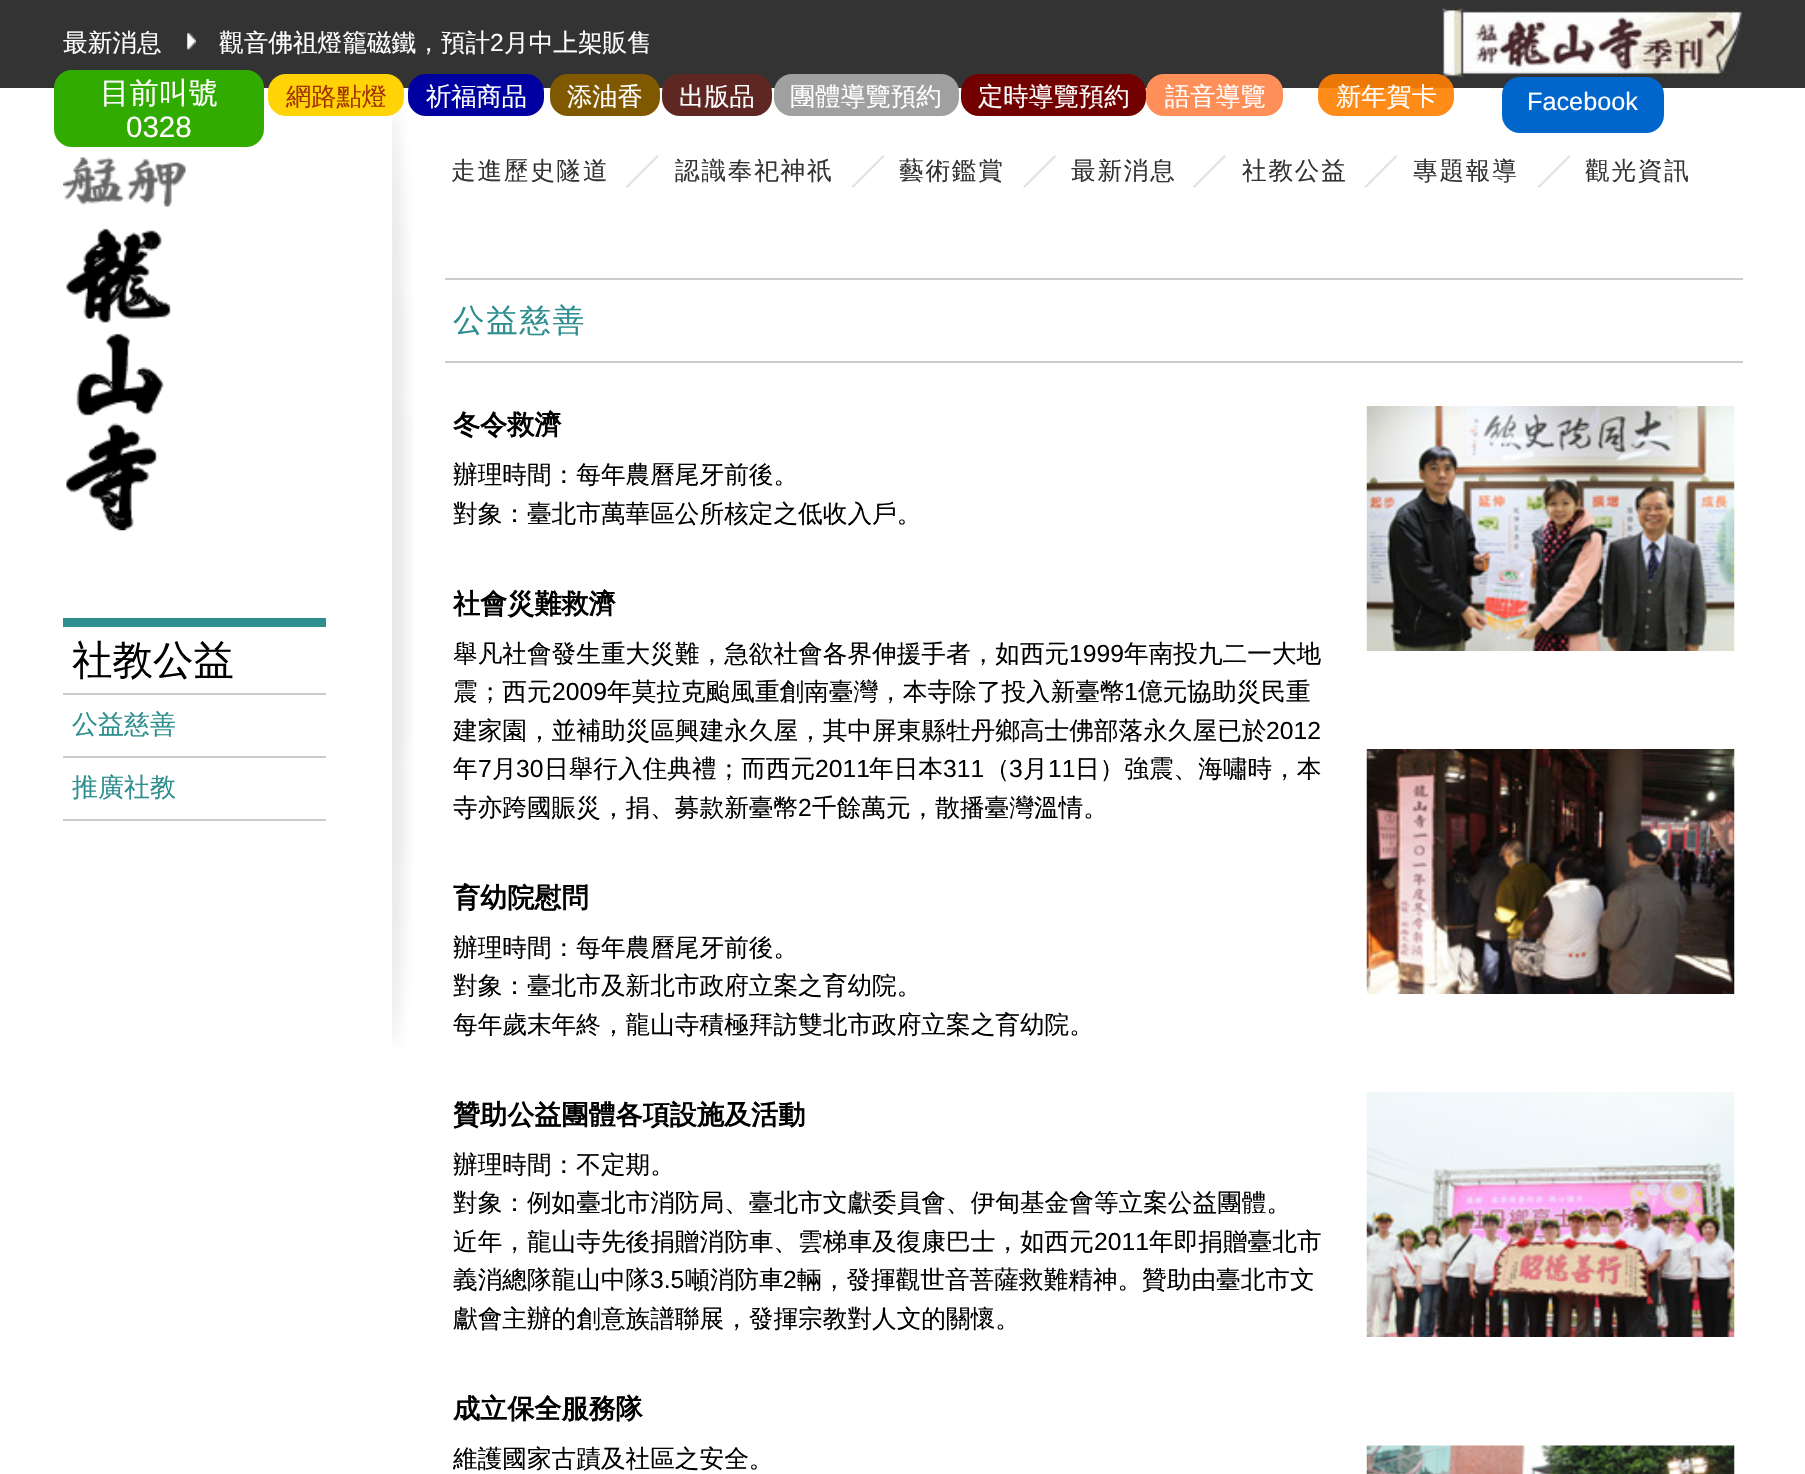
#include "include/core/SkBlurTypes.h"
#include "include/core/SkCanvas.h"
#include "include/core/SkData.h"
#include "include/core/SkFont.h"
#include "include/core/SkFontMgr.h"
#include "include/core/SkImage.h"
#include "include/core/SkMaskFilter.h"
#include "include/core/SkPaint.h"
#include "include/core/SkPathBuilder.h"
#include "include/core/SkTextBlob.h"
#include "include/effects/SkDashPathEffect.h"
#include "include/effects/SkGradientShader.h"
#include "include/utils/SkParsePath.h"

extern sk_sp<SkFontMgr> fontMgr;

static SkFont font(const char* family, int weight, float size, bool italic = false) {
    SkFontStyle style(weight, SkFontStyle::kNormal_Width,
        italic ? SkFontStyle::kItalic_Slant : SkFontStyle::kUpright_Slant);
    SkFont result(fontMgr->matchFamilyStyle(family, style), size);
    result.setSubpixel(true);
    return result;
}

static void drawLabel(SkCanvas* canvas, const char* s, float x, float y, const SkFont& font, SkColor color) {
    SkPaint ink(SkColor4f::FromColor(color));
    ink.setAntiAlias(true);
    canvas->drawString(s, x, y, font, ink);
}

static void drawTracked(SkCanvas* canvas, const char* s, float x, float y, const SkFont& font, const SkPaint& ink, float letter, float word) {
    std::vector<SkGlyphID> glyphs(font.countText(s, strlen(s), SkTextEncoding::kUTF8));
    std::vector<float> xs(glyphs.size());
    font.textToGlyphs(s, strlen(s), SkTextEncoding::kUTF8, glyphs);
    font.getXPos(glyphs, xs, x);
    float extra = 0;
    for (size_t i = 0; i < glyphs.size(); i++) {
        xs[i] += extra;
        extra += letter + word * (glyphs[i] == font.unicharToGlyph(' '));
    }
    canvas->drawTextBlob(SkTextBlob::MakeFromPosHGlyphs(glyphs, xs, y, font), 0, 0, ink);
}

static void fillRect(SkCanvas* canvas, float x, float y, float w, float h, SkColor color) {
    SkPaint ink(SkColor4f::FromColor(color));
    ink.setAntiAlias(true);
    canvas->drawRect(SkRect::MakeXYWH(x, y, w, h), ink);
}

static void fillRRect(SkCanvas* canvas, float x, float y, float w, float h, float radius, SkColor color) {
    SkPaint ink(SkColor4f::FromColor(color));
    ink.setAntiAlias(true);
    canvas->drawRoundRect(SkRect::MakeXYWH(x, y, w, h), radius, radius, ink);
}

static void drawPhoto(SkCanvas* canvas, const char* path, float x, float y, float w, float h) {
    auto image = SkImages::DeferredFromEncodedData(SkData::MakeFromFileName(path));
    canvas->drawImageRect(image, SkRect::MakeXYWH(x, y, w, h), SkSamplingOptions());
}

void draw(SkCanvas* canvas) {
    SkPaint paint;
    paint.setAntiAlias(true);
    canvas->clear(0xFFFFFFFF);
    fillRect(canvas, 0, 0, 1805, 88, 0xFF333333);
    drawPhoto(canvas, "assets/img1.png", 187, 32, 9, 18);
    SkFont font1 = font("WenQuanYi Zen Hei", 500, 24.65f);
    drawLabel(canvas, "最新消息", 63, 51, font1, 0xFFFFFFFF);
    drawLabel(canvas, "觀音佛祖燈籠磁鐵，預計", 219, 51, font1, 0xFFFFFFFF);
    SkFont font2 = font("Liberation Sans", 400, 24.65f);
    drawLabel(canvas, "2", 490, 51, font2, 0xFFFFFFFF);
    drawLabel(canvas, "月中上架販售", 504, 51, font1, 0xFFFFFFFF);
    drawPhoto(canvas, "assets/img2.png", 1442, 8, 301, 69);
    fillRRect(canvas, 54, 70, 210, 77, 18, 0xFF32AB00);
    SkFont font3 = font("WenQuanYi Zen Hei", 500, 29.5f);
    drawLabel(canvas, "目前叫號", 100, 103, font3, 0xFFFFFFFF);
    SkFont font4 = font("Liberation Sans", 400, 29.5f);
    drawLabel(canvas, "0328", 126, 137, font4, 0xFFFFFFFF);
    drawPhoto(canvas, "assets/img4.png", 392, 111, 22, 936);
    fillRRect(canvas, 268, 74, 136, 42, 18, 0xFFFFD306);
    SkFont font5 = font("WenQuanYi Zen Hei", 500, 25.25f);
    drawLabel(canvas, "網路點燈", 286, 105, font5, 0xFFA23400);
    fillRRect(canvas, 408, 74, 136, 42, 18, 0xFF0000A0);
    drawLabel(canvas, "祈福商品", 426, 105, font5, 0xFFFFFFFF);
    fillRRect(canvas, 550, 74, 110, 42, 18, 0xFF805800);
    drawLabel(canvas, "添油香", 567, 105, font5, 0xFFFFFFFF);
    fillRRect(canvas, 662, 74, 110, 42, 18, 0xFF5E2722);
    drawLabel(canvas, "出版品", 679, 105, font5, 0xFFFFFFFF);
    fillRRect(canvas, 774, 74, 185, 42, 18, 0xFFA0A0A0);
    drawLabel(canvas, "團體導覽預約", 790, 105, font5, 0xFFFFFFFF);
    fillRRect(canvas, 961, 74, 185, 42, 18, 0xFF720000);
    drawLabel(canvas, "定時導覽預約", 978, 105, font5, 0xFFFFFFFF);
    fillRRect(canvas, 1146, 74, 137, 42, 18, 0xFFFF8F59);
    drawLabel(canvas, "語音導覽", 1165, 105, font5, 0xFFFFFFFF);
    fillRRect(canvas, 1318, 74, 136, 42, 18, 0xE6FF8000);
    drawLabel(canvas, "新年賀卡", 1336, 105, font5, 0xFFFFFFFF);
    fillRRect(canvas, 1502, 77, 162, 56, 18, 0xFF0066CC);
    SkFont font6 = font("Liberation Sans", 400, 25.25f);
    drawLabel(canvas, "Facebook", 1527, 110, font6, 0xFFFFFFFF);
    drawPhoto(canvas, "assets/img3.png", 63, 157, 123, 374);
    fillRect(canvas, 63, 618, 263, 9, 0xFF2F8E8E);
    fillRect(canvas, 63, 693, 263, 2, 0xFFCCCCCC);
    SkFont font7 = font("WenQuanYi Zen Hei", 500, 40.5f);
    drawLabel(canvas, "社教公益", 72, 674, font7, 0xFF000000);
    fillRect(canvas, 63, 756, 263, 2, 0xFFCCCCCC);
    SkFont font8 = font("WenQuanYi Zen Hei", 500, 26);
    drawLabel(canvas, "公益慈善", 72, 733, font8, 0xFF2F8E8E);
    fillRect(canvas, 63, 819, 263, 2, 0xFFCCCCCC);
    drawLabel(canvas, "推廣社教", 72, 796, font8, 0xFF2F8E8E);
    drawPhoto(canvas, "assets/img5.png", 626, 155, 945, 33);
    paint.setColor(0xFF333333);
    drawTracked(canvas, "走進歷史隧道", 451, 179, font1, paint, 1.75f, 0);
    drawTracked(canvas, "認識奉祀神祇", 675, 179, font1, paint, 1.75f, 0);
    drawTracked(canvas, "藝術鑑賞", 899, 179, font1, paint, 1.75f, 0);
    drawTracked(canvas, "最新消息", 1071, 179, font1, paint, 1.75f, 0);
    drawTracked(canvas, "社教公益", 1242, 179, font1, paint, 1.75f, 0);
    drawTracked(canvas, "專題報導", 1413, 179, font1, paint, 1.75f, 0);
    drawTracked(canvas, "觀光資訊", 1585, 179, font1, paint, 1.75f, 0);
    fillRect(canvas, 445, 278, 1298, 2, 0xFFCCCCCC);
    fillRect(canvas, 445, 361, 1298, 2, 0xFFCCCCCC);
    SkFont font9 = font("WenQuanYi Zen Hei", 500, 31.5f);
    paint.setColor(0xFF2F8E8E);
    drawTracked(canvas, "公益慈善", 453, 331, font9, paint, 1.75f, 0);
    SkFont font10 = font("WenQuanYi Zen Hei", 700, 27.1f);
    drawLabel(canvas, "冬令救濟", 453, 434, font10, 0xFF000000);
    drawPhoto(canvas, "assets/img6.png", 1366, 406, 369, 245);
    drawLabel(canvas, "辦理時間：每年農曆尾牙前後。", 453, 483, font1, 0xFF000000);
    drawLabel(canvas, "對象：臺北市萬華區公所核定之低收入戶。", 453, 522, font1, 0xFF000000);
    drawLabel(canvas, "社會災難救濟", 453, 613, font10, 0xFF000000);
    drawLabel(canvas, "舉凡社會發生重大災難，急欲社會各界伸援手者，如西元", 453, 662, font1, 0xFF000000);
    drawLabel(canvas, "1999", 1069, 662, font2, 0xFF000000);
    drawLabel(canvas, "年南投九二一大地", 1124, 662, font1, 0xFF000000);
    drawLabel(canvas, "震；西元", 453, 700, font1, 0xFF000000);
    drawLabel(canvas, "2009", 552, 700, font2, 0xFF000000);
    drawLabel(canvas, "年莫拉克颱風重創南臺灣，本寺除了投入新臺幣", 607, 700, font1, 0xFF000000);
    drawLabel(canvas, "1", 1124, 700, font2, 0xFF000000);
    drawLabel(canvas, "億元協助災民重", 1138, 700, font1, 0xFF000000);
    drawLabel(canvas, "建家園，並補助災區興建永久屋，其中屏東縣牡丹鄉高士佛部落永久屋已於", 453, 739, font1, 0xFF000000);
    drawLabel(canvas, "2012", 1266, 739, font2, 0xFF000000);
    drawLabel(canvas, "年", 453, 777, font1, 0xFF000000);
    drawLabel(canvas, "7", 478, 777, font2, 0xFF000000);
    drawLabel(canvas, "月", 492, 777, font1, 0xFF000000);
    drawLabel(canvas, "30", 516, 777, font2, 0xFF000000);
    drawLabel(canvas, "日舉行入住典禮；而西元", 544, 777, font1, 0xFF000000);
    drawLabel(canvas, "2011", 815, 777, font2, 0xFF000000);
    drawLabel(canvas, "年日本", 869, 777, font1, 0xFF000000);
    drawLabel(canvas, "311", 943, 777, font2, 0xFF000000);
    drawLabel(canvas, "（", 985, 777, font1, 0xFF000000);
    drawLabel(canvas, "3", 1009, 777, font2, 0xFF000000);
    drawLabel(canvas, "月", 1023, 777, font1, 0xFF000000);
    drawLabel(canvas, "11", 1048, 777, font2, 0xFF000000);
    drawLabel(canvas, "日）強震、海嘯時，本", 1075, 777, font1, 0xFF000000);
    drawLabel(canvas, "寺亦跨國賑災，捐、募款新臺幣", 453, 816, font1, 0xFF000000);
    drawLabel(canvas, "2", 798, 816, font2, 0xFF000000);
    drawLabel(canvas, "千餘萬元，散播臺灣溫情。", 812, 816, font1, 0xFF000000);
    drawLabel(canvas, "育幼院慰問", 453, 907, font10, 0xFF000000);
    drawPhoto(canvas, "assets/img7.png", 1366, 749, 369, 245);
    drawLabel(canvas, "辦理時間：每年農曆尾牙前後。", 453, 956, font1, 0xFF000000);
    drawLabel(canvas, "對象：臺北市及新北市政府立案之育幼院。", 453, 994, font1, 0xFF000000);
    drawLabel(canvas, "每年歲末年終，龍山寺積極拜訪雙北市政府立案之育幼院。", 453, 1033, font1, 0xFF000000);
    drawLabel(canvas, "贊助公益團體各項設施及活動", 453, 1124, font10, 0xFF000000);
    drawPhoto(canvas, "assets/img8.png", 1366, 1092, 369, 245);
    drawLabel(canvas, "辦理時間：不定期。", 453, 1173, font1, 0xFF000000);
    drawLabel(canvas, "對象：例如臺北市消防局、臺北市文獻委員會、伊甸基金會等立案公益團體。", 453, 1211, font1, 0xFF000000);
    drawLabel(canvas, "近年，龍山寺先後捐贈消防車、雲梯車及復康巴士，如西元", 453, 1250, font1, 0xFF000000);
    drawLabel(canvas, "2011", 1094, 1250, font2, 0xFF000000);
    drawLabel(canvas, "年即捐贈臺北市", 1149, 1250, font1, 0xFF000000);
    drawLabel(canvas, "義消總隊龍山中隊", 453, 1288, font1, 0xFF000000);
    drawLabel(canvas, "3.5", 650, 1288, font2, 0xFF000000);
    drawLabel(canvas, "噸消防車", 685, 1288, font1, 0xFF000000);
    drawLabel(canvas, "2", 783, 1288, font2, 0xFF000000);
    drawLabel(canvas, "輛，發揮觀世音菩薩救難精神。贊助由臺北市文", 797, 1288, font1, 0xFF000000);
    drawLabel(canvas, "獻會主辦的創意族譜聯展，發揮宗教對人文的關懷。", 453, 1327, font1, 0xFF000000);
    drawLabel(canvas, "成立保全服務隊", 453, 1418, font10, 0xFF000000);
    drawLabel(canvas, "維護國家古蹟及社區之安全。", 453, 1467, font1, 0xFF000000);
    drawPhoto(canvas, "assets/img9.png", 1366, 1445, 369, 29);
}
